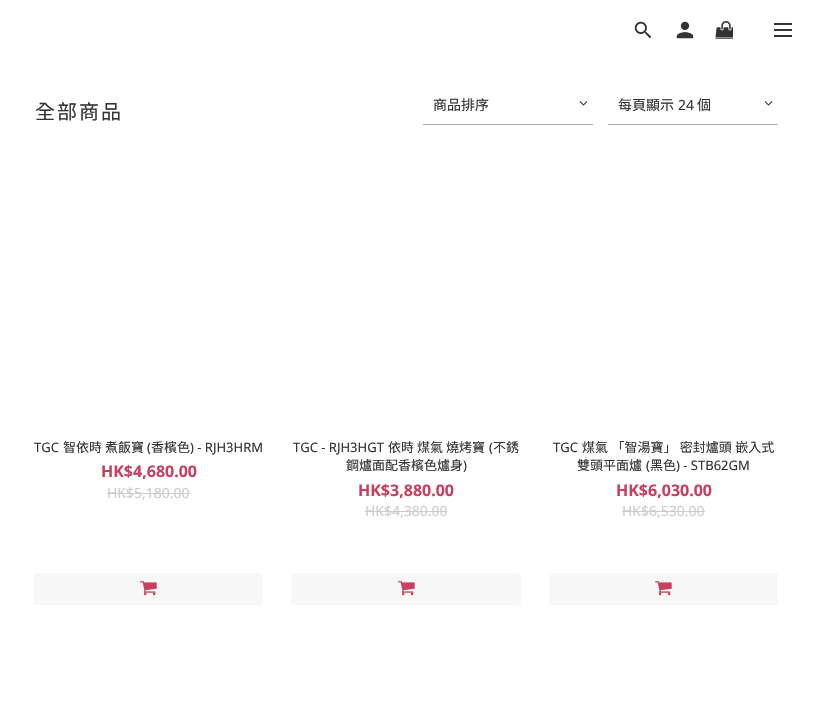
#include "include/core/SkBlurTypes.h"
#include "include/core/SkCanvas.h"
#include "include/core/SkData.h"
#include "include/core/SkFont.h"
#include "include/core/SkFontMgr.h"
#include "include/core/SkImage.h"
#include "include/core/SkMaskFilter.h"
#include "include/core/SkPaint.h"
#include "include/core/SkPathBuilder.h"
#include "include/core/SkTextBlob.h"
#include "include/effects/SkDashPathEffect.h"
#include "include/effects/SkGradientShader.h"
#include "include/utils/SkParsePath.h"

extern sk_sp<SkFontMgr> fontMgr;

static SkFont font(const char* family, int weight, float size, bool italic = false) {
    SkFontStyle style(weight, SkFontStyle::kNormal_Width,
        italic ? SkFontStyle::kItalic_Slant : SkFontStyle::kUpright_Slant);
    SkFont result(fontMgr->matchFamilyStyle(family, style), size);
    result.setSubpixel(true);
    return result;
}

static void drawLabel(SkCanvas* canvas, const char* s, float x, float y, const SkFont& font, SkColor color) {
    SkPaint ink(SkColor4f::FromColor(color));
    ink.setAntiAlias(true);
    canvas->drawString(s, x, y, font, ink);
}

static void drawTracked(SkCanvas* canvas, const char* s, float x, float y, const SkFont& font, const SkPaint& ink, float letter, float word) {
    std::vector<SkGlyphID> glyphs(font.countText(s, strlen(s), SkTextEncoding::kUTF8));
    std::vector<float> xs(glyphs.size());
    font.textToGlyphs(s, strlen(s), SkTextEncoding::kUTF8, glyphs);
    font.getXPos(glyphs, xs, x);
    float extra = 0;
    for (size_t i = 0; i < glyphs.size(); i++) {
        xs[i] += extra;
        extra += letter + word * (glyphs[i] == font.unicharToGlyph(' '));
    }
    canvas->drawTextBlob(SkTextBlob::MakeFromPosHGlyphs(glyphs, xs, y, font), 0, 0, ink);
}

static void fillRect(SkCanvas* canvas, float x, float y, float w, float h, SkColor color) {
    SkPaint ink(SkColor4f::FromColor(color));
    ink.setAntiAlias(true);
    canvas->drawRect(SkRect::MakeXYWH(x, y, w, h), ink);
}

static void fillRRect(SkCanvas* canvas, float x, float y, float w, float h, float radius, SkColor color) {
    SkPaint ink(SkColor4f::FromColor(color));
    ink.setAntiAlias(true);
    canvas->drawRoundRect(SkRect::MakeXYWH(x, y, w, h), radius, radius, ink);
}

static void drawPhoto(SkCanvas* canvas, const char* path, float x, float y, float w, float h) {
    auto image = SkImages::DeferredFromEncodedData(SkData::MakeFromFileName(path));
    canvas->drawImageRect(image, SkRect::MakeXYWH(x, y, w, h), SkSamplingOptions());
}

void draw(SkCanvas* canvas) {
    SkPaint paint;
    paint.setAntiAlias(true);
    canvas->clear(0xFFFFFFFF);
    drawPhoto(canvas, "assets/img1.png", 634, 21, 18, 18);
    drawPhoto(canvas, "assets/img2.png", 676, 21, 18, 18);
    drawPhoto(canvas, "assets/img3.png", 715, 21, 18, 18);
    fillRect(canvas, 774, 29, 18, 2, 0xFF333333);
    fillRect(canvas, 774, 23, 18, 2, 0xFF333333);
    fillRect(canvas, 774, 35, 18, 2, 0xFF333333);
    SkFont font1 = font("Noto Sans TC", 400, 20);
    paint.setColor(0xFF333333);
    drawTracked(canvas, "全部商品", 35, 119, font1, paint, 2, 0);
    SkFont font2 = font("Noto Sans TC", 400, 14);
    drawLabel(canvas, "商品排序", 433, 110, font2, 0xFF333333);
    fillRect(canvas, 423, 124, 170, 1, 0xFFAAAAAA);
    drawPhoto(canvas, "assets/img4.png", 579, 101, 9, 5);
    drawLabel(canvas, "每頁顯示", 618, 110, font2, 0xFF333333);
    SkFont font3 = font("Noto Sans", 400, 14);
    drawLabel(canvas, "24", 678, 110, font3, 0xFF333333);
    drawLabel(canvas, "個", 697, 110, font2, 0xFF333333);
    fillRect(canvas, 608, 124, 170, 1, 0xFFAAAAAA);
    drawPhoto(canvas, "assets/img4.png", 764, 101, 9, 5);
    SkFont font4 = font("Noto Sans", 400, 13);
    drawLabel(canvas, "TGC", 34, 452, font4, 0xFF333333);
    SkFont font5 = font("Noto Sans TC", 400, 13);
    drawLabel(canvas, "智依時 煮飯寶", 63, 452, font5, 0xFF333333);
    drawLabel(canvas, "(", 147, 452, font4, 0xFF333333);
    drawLabel(canvas, "香檳色", 151, 452, font5, 0xFF333333);
    drawLabel(canvas, ") - RJH3HRM", 190, 452, font4, 0xFF333333);
    SkFont font6 = font("Noto Sans", 700, 16);
    drawLabel(canvas, "HK$4,680.00", 101, 477, font6, 0xFFC74060);
    drawLabel(canvas, "HK$5,180.00", 107, 498, font3, 0xFFCCCCCC);
    fillRect(canvas, 107, 493, 83, 1, 0xFFCCCCCC);
    fillRRect(canvas, 34, 573, 229, 32, 3, 0xFFF7F7F7);
    drawPhoto(canvas, "assets/img5.png", 140, 581, 17, 15);
    drawLabel(canvas, "TGC - RJH3HGT", 293, 452, font4, 0xFF333333);
    drawLabel(canvas, "依時", 388, 452, font5, 0xFF333333);
    drawLabel(canvas, "煤氣", 417, 452, font5, 0xFF333333);
    drawLabel(canvas, "燒烤寶", 446, 452, font5, 0xFF333333);
    drawLabel(canvas, "(", 489, 452, font4, 0xFF333333);
    drawLabel(canvas, "不銹", 493, 452, font5, 0xFF333333);
    drawLabel(canvas, "鋼爐面配香檳色爐身", 346, 470, font5, 0xFF333333);
    drawLabel(canvas, ")", 463, 470, font4, 0xFF333333);
    drawLabel(canvas, "HK$3,880.00", 358, 496, font6, 0xFFC74060);
    drawLabel(canvas, "HK$4,380.00", 365, 516, font3, 0xFFCCCCCC);
    fillRect(canvas, 365, 511, 82, 1, 0xFFCCCCCC);
    fillRRect(canvas, 291, 573, 230, 32, 3, 0xFFF7F7F7);
    drawPhoto(canvas, "assets/img5.png", 398, 581, 17, 15);
    drawLabel(canvas, "TGC", 553, 452, font4, 0xFF333333);
    drawTracked(canvas, "煤氣 「智湯寶」 密封爐頭 嵌入式", 582, 452, font5, paint, 0, 0.5f);
    drawLabel(canvas, "雙頭平面爐", 577, 470, font5, 0xFF333333);
    drawLabel(canvas, "(", 646, 470, font4, 0xFF333333);
    drawLabel(canvas, "黑色", 650, 470, font5, 0xFF333333);
    drawLabel(canvas, ") - STB62GM", 676, 470, font4, 0xFF333333);
    drawLabel(canvas, "HK$6,030.00", 616, 496, font6, 0xFFC74060);
    drawLabel(canvas, "HK$6,530.00", 622, 516, font3, 0xFFCCCCCC);
    fillRect(canvas, 622, 511, 83, 1, 0xFFCCCCCC);
    fillRRect(canvas, 549, 573, 229, 32, 3, 0xFFF7F7F7);
    drawPhoto(canvas, "assets/img5.png", 655, 581, 17, 15);
}
